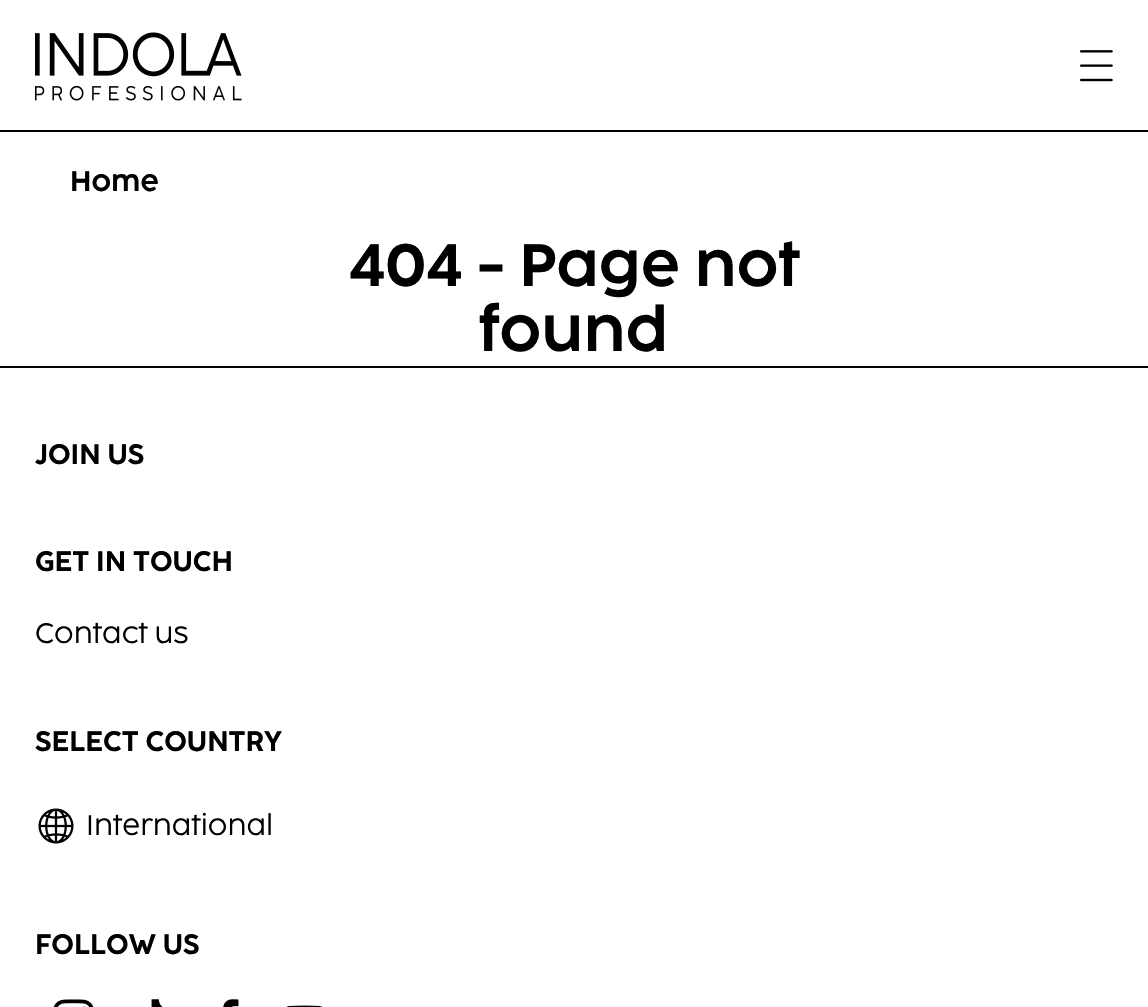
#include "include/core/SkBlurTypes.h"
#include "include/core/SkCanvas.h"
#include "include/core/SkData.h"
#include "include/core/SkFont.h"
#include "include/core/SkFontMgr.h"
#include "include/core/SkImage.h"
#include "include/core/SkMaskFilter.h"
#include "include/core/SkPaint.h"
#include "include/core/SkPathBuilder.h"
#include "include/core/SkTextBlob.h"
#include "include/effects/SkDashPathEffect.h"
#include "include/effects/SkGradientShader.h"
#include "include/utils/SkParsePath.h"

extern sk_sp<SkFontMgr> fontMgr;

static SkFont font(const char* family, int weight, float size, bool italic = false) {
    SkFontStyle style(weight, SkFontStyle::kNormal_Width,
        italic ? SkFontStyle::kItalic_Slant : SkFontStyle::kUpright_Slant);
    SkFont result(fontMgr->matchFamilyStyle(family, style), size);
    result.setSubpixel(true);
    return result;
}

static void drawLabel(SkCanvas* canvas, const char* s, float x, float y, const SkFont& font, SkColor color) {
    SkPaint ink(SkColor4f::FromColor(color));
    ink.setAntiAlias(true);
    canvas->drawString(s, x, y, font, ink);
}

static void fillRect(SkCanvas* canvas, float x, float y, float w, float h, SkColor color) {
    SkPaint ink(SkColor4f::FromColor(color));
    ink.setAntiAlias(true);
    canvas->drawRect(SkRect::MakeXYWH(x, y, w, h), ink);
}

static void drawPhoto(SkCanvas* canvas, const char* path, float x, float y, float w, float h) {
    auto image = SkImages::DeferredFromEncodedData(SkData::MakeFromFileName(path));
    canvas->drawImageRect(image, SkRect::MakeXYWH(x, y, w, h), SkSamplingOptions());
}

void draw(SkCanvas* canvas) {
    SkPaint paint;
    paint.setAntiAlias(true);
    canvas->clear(0xFFFFFFFF);
    drawPhoto(canvas, "assets/img1.png", 35, 32, 207, 69);
    drawPhoto(canvas, "assets/img2.png", 1080, 50, 33, 32);
    fillRect(canvas, 0, 130, 1148, 2, 0xFF000000);
    SkFont font1 = font("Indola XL", 700, 28);
    drawLabel(canvas, "Home", 70, 191, font1, 0xFF000000);
    SkFont font2 = font("Indola XL", 700, 59.5f);
    drawLabel(canvas, "404 - Page not", 349, 286, font2, 0xFF000000);
    drawLabel(canvas, "found", 479, 351, font2, 0xFF000000);
    fillRect(canvas, 0, 366, 1148, 2, 0xFF000000);
    drawLabel(canvas, "JOIN US", 35, 464, font1, 0xFF000000);
    drawLabel(canvas, "GET IN TOUCH", 35, 571, font1, 0xFF000000);
    SkFont font3 = font("Indola XL", 400, 28);
    drawLabel(canvas, "Contact us", 35, 643, font3, 0xFF000000);
    drawLabel(canvas, "SELECT COUNTRY", 35, 751, font1, 0xFF000000);
    drawPhoto(canvas, "assets/img3.png", 38, 808, 36, 36);
    drawLabel(canvas, "International", 86, 835, font3, 0xFF000000);
    drawLabel(canvas, "FOLLOW US", 35, 954, font1, 0xFF000000);
    drawPhoto(canvas, "assets/img4.png", 53, 999, 41, 8);
    drawPhoto(canvas, "assets/img5.png", 151, 999, 12, 8);
    drawPhoto(canvas, "assets/img6.png", 223, 999, 16, 8);
    drawPhoto(canvas, "assets/img7.png", 286, 1005, 37, 2);
}
